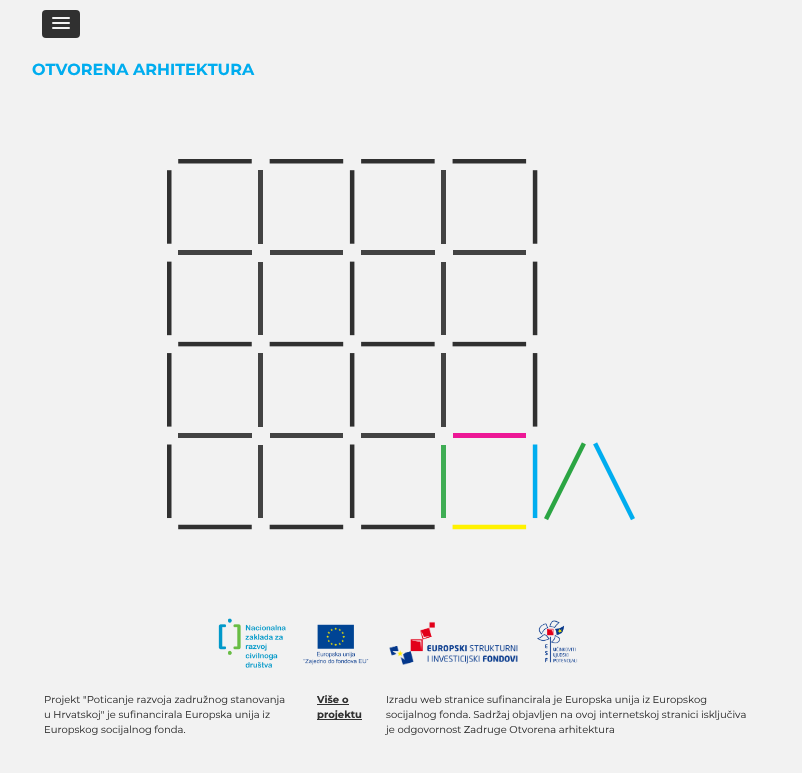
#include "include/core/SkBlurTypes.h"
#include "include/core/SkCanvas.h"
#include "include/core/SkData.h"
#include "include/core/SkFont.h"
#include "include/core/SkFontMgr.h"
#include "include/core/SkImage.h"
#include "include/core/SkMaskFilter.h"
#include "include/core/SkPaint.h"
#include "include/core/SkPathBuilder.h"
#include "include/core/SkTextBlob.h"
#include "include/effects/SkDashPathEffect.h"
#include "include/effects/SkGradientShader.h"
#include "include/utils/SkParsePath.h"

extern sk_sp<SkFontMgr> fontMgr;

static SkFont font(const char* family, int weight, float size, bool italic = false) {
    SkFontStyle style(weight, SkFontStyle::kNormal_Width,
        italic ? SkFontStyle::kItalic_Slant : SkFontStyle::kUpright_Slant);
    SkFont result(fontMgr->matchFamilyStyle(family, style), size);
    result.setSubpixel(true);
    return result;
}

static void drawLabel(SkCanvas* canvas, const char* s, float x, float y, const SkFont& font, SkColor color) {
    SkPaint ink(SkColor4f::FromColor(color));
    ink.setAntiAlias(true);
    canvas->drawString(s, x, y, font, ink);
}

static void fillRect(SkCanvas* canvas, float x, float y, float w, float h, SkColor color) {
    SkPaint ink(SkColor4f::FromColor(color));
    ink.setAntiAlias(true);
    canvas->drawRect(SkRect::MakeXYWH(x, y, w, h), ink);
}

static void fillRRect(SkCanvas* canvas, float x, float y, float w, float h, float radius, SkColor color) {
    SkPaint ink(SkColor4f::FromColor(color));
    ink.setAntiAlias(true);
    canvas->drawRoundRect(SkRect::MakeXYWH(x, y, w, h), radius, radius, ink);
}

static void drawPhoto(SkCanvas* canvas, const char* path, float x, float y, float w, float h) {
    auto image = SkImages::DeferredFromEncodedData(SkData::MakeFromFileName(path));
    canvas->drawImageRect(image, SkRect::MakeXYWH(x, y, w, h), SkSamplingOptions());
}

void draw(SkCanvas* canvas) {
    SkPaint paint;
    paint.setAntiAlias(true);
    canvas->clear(0xFFF2F2F2);
    fillRRect(canvas, 42, 10, 38, 28, 4, 0xFF303030);
    fillRRect(canvas, 52, 17, 18, 2, 1, 0xFFF2F2F2);
    fillRRect(canvas, 52, 22, 18, 2, 1, 0xFFF2F2F2);
    fillRRect(canvas, 52, 27, 18, 2, 1, 0xFFF2F2F2);
    SkFont font1 = font("Montserrat", 700, 16);
    drawLabel(canvas, "OTVORENA ARHITEKTURA", 32, 75, font1, 0xFF00ADEF);
    drawPhoto(canvas, "assets/img1.png", 167, 159, 468, 371);
    drawPhoto(canvas, "assets/img2.png", 218, 618, 68, 50);
    drawPhoto(canvas, "assets/img3.png", 303, 624, 66, 41);
    drawPhoto(canvas, "assets/img4.png", 389, 621, 129, 44);
    drawPhoto(canvas, "assets/img5.png", 537, 620, 41, 43);
    SkFont font2 = font("Montserrat", 400, 10);
    drawLabel(canvas, "Projekt \"Poticanje razvoja zadružnog stanovanja", 44, 703, font2, 0xFF303030);
    drawLabel(canvas, "u Hrvatskoj\" je sufinancirala Europska unija iz", 44, 718, font2, 0xFF303030);
    drawLabel(canvas, "Europskog socijalnog fonda.", 44, 733, font2, 0xFF303030);
    SkFont font3 = font("Montserrat", 700, 10);
    drawLabel(canvas, "Više o", 317, 703, font3, 0xFF303030);
    fillRect(canvas, 317, 704, 32, 1, 0xFF303030);
    fillRect(canvas, 317, 719, 45, 1, 0xFF303030);
    drawLabel(canvas, "projektu", 317, 718, font3, 0xFF303030);
    drawLabel(canvas, "Izradu web stranice sufinancirala je Europska unija iz Europskog", 386, 703, font2, 0xFF303030);
    drawLabel(canvas, "socijalnog fonda. Sadržaj objavljen na ovoj internetskoj stranici isključiva", 386, 718, font2, 0xFF303030);
    drawLabel(canvas, "je odgovornost Zadruge Otvorena arhitektura", 386, 733, font2, 0xFF303030);
}
